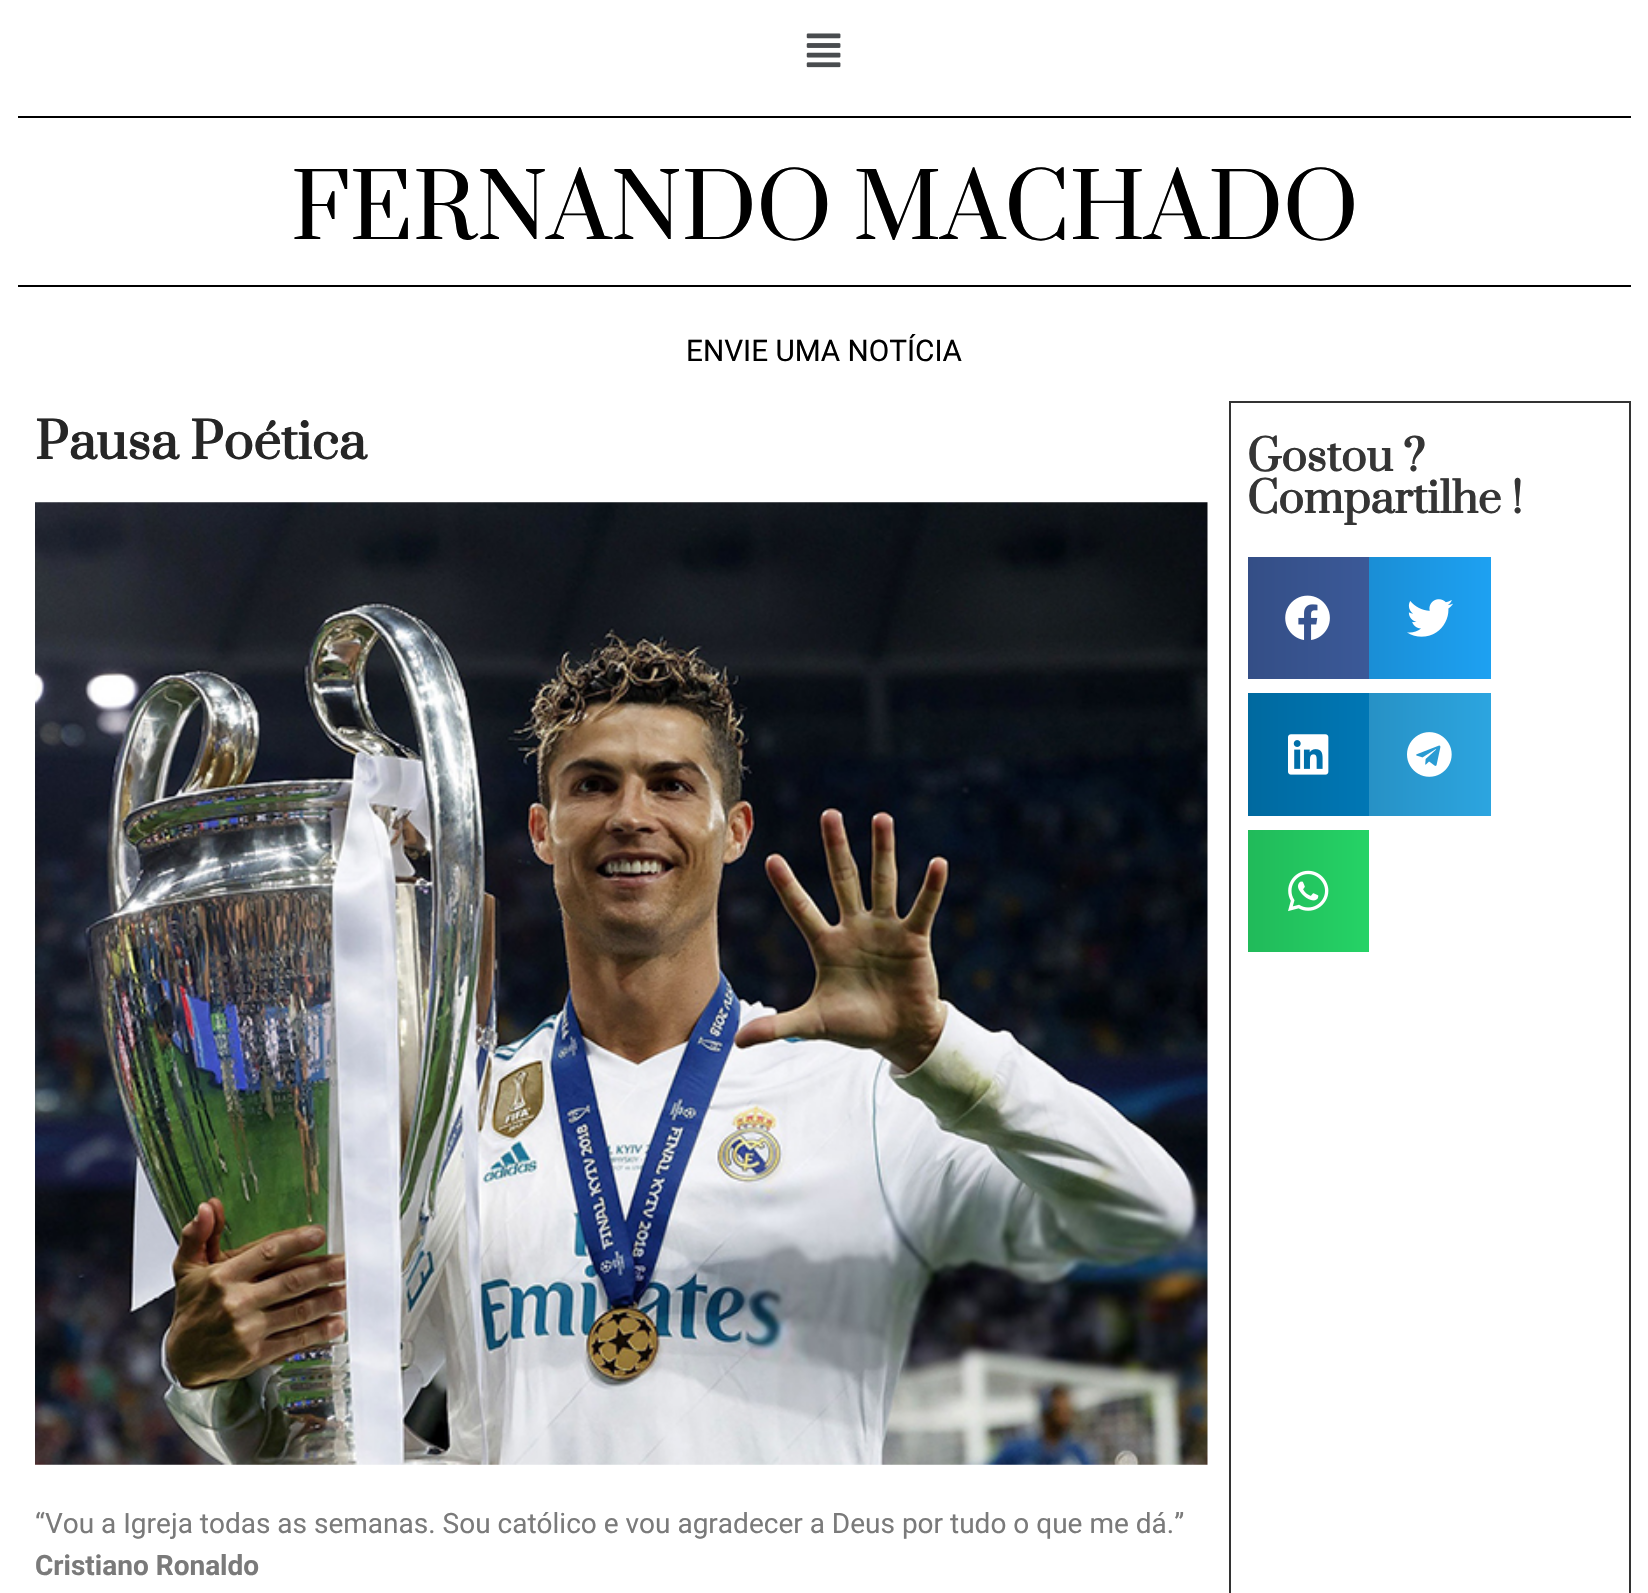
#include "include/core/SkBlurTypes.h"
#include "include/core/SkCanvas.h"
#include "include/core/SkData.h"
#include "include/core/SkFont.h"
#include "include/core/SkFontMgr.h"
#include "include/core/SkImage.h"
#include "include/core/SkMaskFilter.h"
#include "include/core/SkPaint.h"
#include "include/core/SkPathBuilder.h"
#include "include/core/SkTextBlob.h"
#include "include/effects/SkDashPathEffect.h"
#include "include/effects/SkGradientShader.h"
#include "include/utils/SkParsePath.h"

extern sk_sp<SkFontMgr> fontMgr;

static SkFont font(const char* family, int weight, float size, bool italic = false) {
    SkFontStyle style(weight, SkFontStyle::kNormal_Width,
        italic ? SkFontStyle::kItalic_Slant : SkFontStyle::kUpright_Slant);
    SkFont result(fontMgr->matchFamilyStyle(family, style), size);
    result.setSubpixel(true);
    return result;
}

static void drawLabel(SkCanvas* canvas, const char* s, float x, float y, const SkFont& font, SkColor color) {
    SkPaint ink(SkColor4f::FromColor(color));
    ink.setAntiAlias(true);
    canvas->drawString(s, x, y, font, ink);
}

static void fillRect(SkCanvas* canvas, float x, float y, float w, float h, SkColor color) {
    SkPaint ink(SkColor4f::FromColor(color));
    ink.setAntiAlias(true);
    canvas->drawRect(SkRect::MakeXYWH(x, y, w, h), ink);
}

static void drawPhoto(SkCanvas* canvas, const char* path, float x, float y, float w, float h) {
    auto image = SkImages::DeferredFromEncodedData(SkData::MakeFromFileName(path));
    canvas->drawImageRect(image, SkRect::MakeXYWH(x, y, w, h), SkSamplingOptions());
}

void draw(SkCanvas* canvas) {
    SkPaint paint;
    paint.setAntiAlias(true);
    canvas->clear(0xFFFFFFFF);
    drawPhoto(canvas, "assets/img1.png", 806, 33, 35, 35);
    fillRect(canvas, 18, 116, 1613, 2, 0xFF000000);
    SkFont font1 = font("Prata", 400, 87.5f);
    drawLabel(canvas, "FERNANDO MACHADO", 291, 239, font1, 0xFF000000);
    fillRect(canvas, 18, 285, 1613, 2, 0xFF000000);
    SkFont font2 = font("Roboto", 400, 29.75f);
    drawLabel(canvas, "ENVIE UMA NOTÍCIA", 686, 361, font2, 0xFF000000);
    SkFont font3 = font("Prata", 700, 49);
    drawLabel(canvas, "Pausa Poética", 35, 459, font3, 0xFF262626);
    drawPhoto(canvas, "assets/img2.png", 35, 502, 1173, 963);
    SkFont font4 = font("Roboto", 400, 28);
    drawLabel(canvas, "“Vou a Igreja todas as semanas. Sou católico e vou agradecer a Deus por tudo o que me dá.”", 35, 1533, font4, 0xFF7A7A7A);
    SkFont font5 = font("Roboto", 700, 28);
    drawLabel(canvas, "Cristiano Ronaldo", 35, 1575, font5, 0xFF7A7A7A);
    paint.setStroke(true);
    paint.setStrokeWidth(2);
    paint.setColor(0xFF333333);
    canvas->drawRect(SkRect::MakeXYWH(1230, 402, 400, 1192), paint);
    SkFont font6 = font("Prata", 700, 42);
    drawLabel(canvas, "Gostou ?", 1247, 471, font6, 0xFF353535);
    drawLabel(canvas, "Compartilhe !", 1247, 513, font6, 0xFF353535);
    paint.setStroke(false);
    {
        const SkColor colors[] = {0xFF344E86, 0xFF3B5998};
        const float stops[] = {0, 1};
        const SkPoint ends[] = {{1248, 618}, {1369, 618}};
        paint.setShader(SkGradientShader::MakeLinear(ends, colors, stops, 2, SkTileMode::kClamp));
        paint.setAlpha(255);
    }
    canvas->drawRect(SkRect::MakeXYWH(1248, 557, 121, 122), paint);
    drawPhoto(canvas, "assets/img3.png", 1285, 595, 45, 45);
    {
        const SkColor colors[] = {0xFF1A8ED5, 0xFF1DA1F2};
        const float stops[] = {0, 1};
        const SkPoint ends[] = {{1369, 618}, {1491, 618}};
        paint.setShader(SkGradientShader::MakeLinear(ends, colors, stops, 2, SkTileMode::kClamp));
        paint.setAlpha(255);
    }
    canvas->drawRect(SkRect::MakeXYWH(1369, 557, 122, 122), paint);
    drawPhoto(canvas, "assets/img4.png", 1407, 599, 46, 38);
    {
        const SkColor colors[] = {0xFF00699F, 0xFF0077B5};
        const float stops[] = {0, 1};
        const SkPoint ends[] = {{1248, 754}, {1369, 754}};
        paint.setShader(SkGradientShader::MakeLinear(ends, colors, stops, 2, SkTileMode::kClamp));
        paint.setAlpha(255);
    }
    canvas->drawRect(SkRect::MakeXYWH(1248, 693, 121, 123), paint);
    drawPhoto(canvas, "assets/img5.png", 1288, 734, 41, 41);
    {
        const SkColor colors[] = {0xFF2791C5, 0xFF2CA5E0};
        const float stops[] = {0, 1};
        const SkPoint ends[] = {{1369, 754}, {1491, 754}};
        paint.setShader(SkGradientShader::MakeLinear(ends, colors, stops, 2, SkTileMode::kClamp));
        paint.setAlpha(255);
    }
    canvas->drawRect(SkRect::MakeXYWH(1369, 693, 122, 123), paint);
    drawPhoto(canvas, "assets/img6.png", 1407, 732, 45, 45);
    {
        const SkColor colors[] = {0xFF21BA5A, 0xFF25D366};
        const float stops[] = {0, 1};
        const SkPoint ends[] = {{1248, 891}, {1369, 891}};
        paint.setShader(SkGradientShader::MakeLinear(ends, colors, stops, 2, SkTileMode::kClamp));
        paint.setAlpha(255);
    }
    canvas->drawRect(SkRect::MakeXYWH(1248, 830, 121, 122), paint);
    drawPhoto(canvas, "assets/img7.png", 1288, 870, 41, 42);
}
